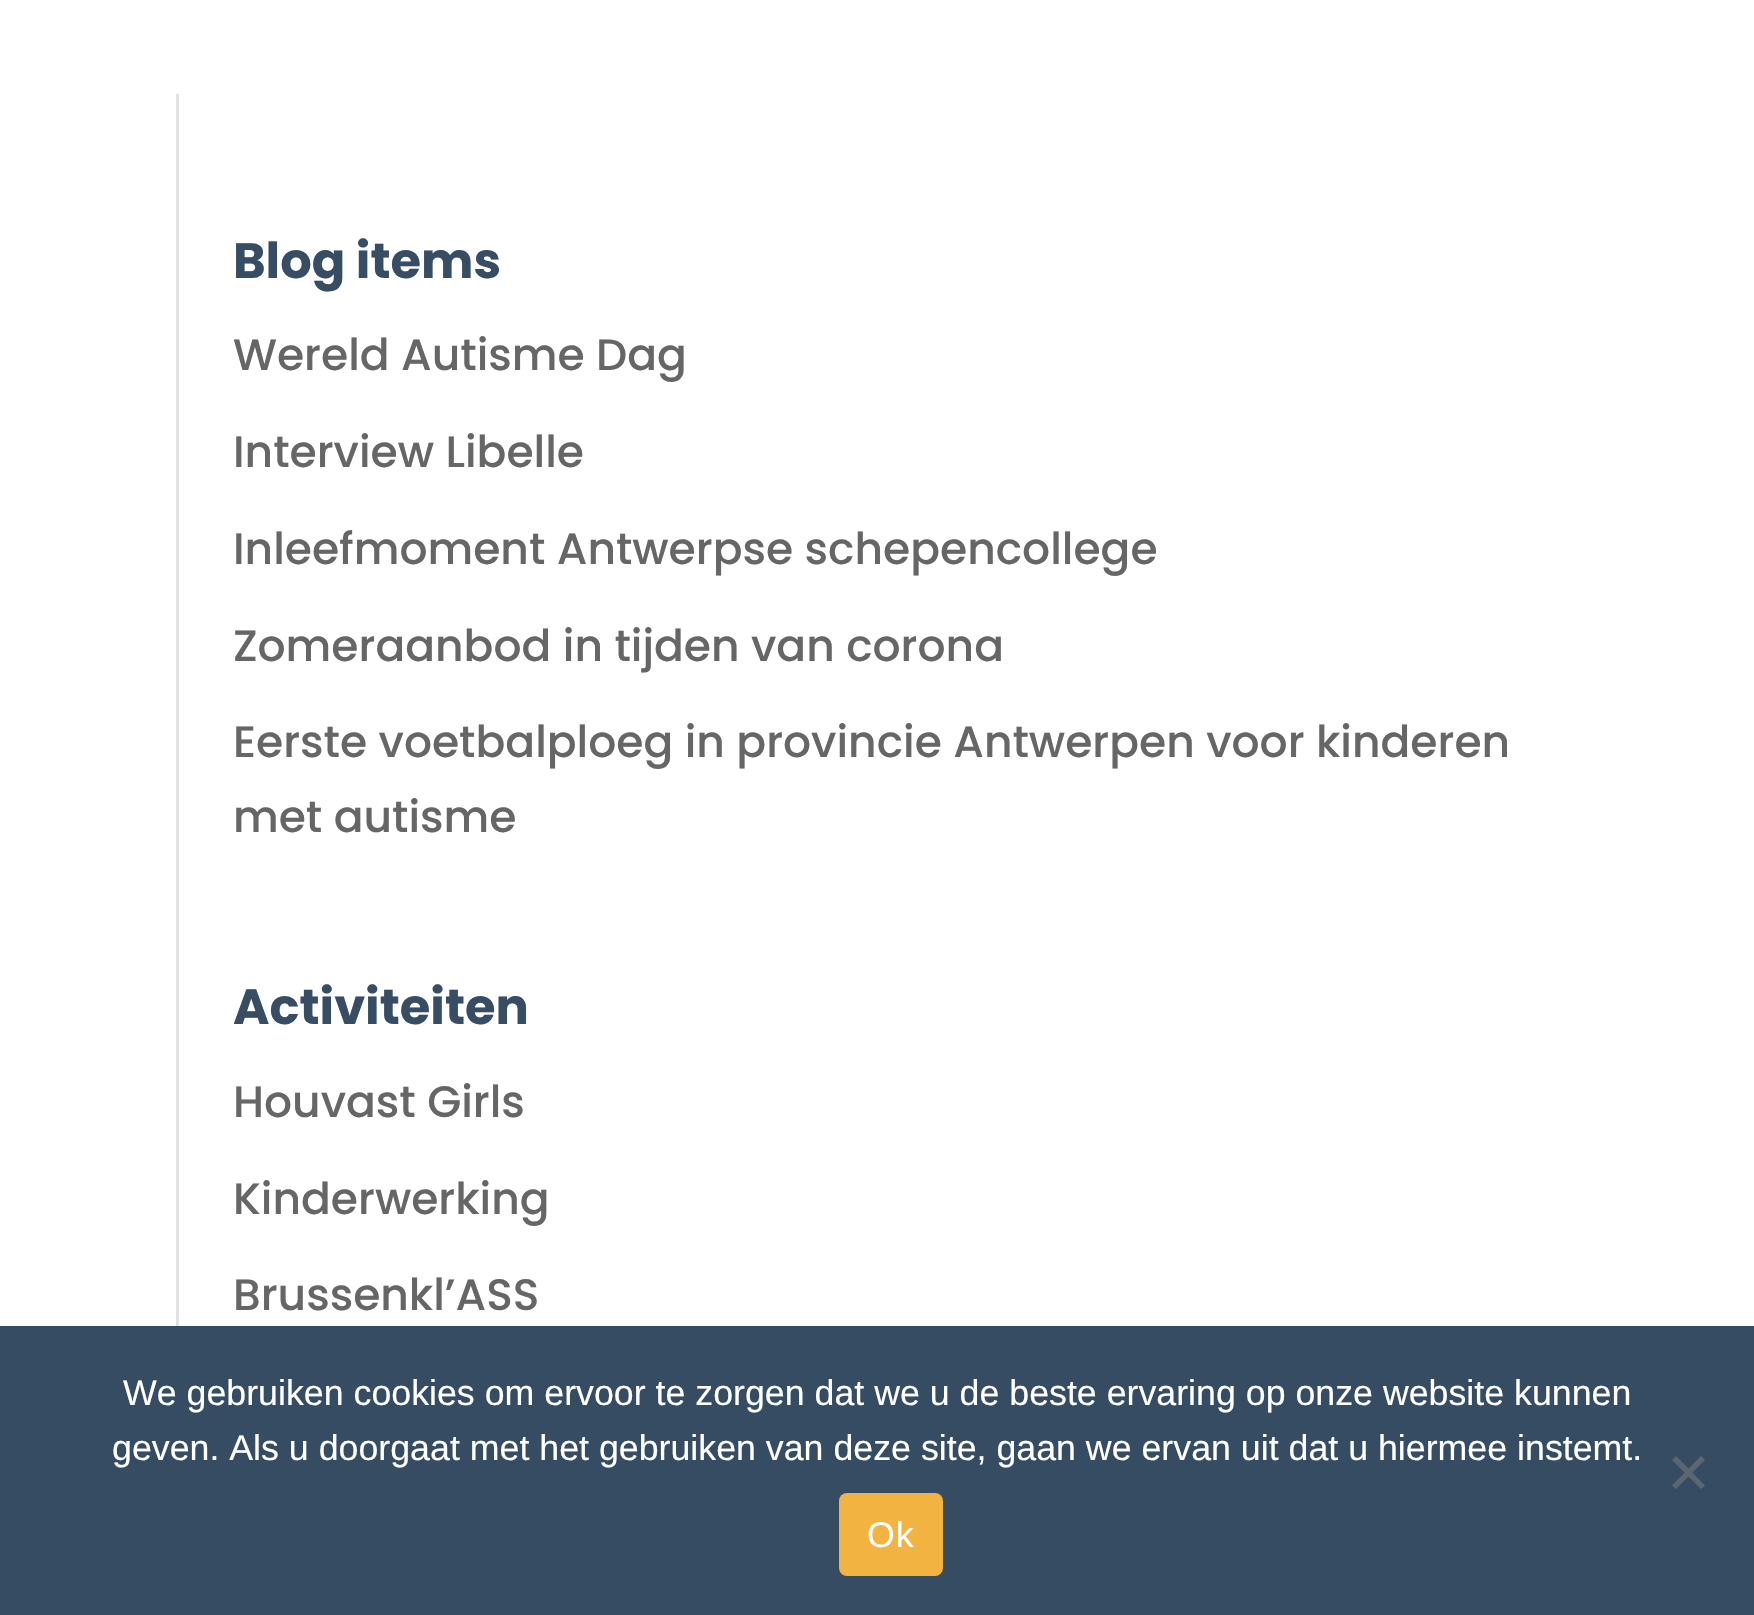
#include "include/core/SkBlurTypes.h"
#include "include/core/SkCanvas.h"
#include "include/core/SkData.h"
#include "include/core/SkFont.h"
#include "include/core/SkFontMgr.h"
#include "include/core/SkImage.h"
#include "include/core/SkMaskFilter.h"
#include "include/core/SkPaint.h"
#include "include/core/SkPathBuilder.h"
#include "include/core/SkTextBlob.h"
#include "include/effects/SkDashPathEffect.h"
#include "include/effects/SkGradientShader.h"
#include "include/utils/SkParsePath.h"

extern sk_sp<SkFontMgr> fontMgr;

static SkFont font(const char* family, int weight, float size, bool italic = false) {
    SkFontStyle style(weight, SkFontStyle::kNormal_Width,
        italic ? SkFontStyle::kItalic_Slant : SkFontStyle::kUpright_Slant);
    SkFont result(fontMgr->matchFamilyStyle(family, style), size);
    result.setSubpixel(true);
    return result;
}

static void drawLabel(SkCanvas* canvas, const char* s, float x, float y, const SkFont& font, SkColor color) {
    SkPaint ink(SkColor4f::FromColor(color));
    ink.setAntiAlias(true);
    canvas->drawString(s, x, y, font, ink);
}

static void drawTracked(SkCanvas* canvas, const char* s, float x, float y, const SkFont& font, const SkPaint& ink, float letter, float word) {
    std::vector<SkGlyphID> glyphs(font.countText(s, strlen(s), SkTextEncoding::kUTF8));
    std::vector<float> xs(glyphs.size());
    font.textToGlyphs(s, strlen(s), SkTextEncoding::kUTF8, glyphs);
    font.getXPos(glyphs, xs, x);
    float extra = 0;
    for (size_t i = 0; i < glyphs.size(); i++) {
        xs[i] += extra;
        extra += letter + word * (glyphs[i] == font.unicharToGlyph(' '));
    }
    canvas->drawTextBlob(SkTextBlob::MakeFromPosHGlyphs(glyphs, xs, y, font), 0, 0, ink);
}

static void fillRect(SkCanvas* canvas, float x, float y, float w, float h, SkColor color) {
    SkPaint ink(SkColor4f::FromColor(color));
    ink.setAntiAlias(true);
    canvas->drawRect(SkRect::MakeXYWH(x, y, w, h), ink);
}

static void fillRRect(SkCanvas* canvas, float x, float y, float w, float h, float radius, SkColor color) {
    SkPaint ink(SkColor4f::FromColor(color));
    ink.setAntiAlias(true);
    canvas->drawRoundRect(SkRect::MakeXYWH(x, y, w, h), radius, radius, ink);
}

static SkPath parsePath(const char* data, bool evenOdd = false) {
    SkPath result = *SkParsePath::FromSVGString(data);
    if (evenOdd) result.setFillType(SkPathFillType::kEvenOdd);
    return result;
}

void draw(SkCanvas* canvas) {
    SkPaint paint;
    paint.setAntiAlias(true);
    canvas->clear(0xFFFFFFFF);
    fillRect(canvas, 176, 94, 3, 1232, 0xFFE2E2E2);
    SkFont font1 = font("Poppins", 700, 49.5f);
    drawLabel(canvas, "Blog items", 233, 278, font1, 0xFF364D63);
    SkFont font2 = font("Poppins", 500, 44);
    drawLabel(canvas, "Wereld Autisme Dag", 233, 370, font2, 0xFF666666);
    drawLabel(canvas, "Interview Libelle", 233, 467, font2, 0xFF666666);
    drawLabel(canvas, "Inleefmoment Antwerpse schepencollege", 233, 564, font2, 0xFF666666);
    drawLabel(canvas, "Zomeraanbod in tijden van corona", 233, 661, font2, 0xFF666666);
    drawLabel(canvas, "Eerste voetbalploeg in provincie Antwerpen voor kinderen", 233, 757, font2, 0xFF666666);
    drawLabel(canvas, "met autisme", 233, 832, font2, 0xFF666666);
    drawLabel(canvas, "Activiteiten", 233, 1024, font1, 0xFF364D63);
    drawLabel(canvas, "Houvast Girls", 233, 1117, font2, 0xFF666666);
    drawLabel(canvas, "Kinderwerking", 233, 1214, font2, 0xFF666666);
    drawLabel(canvas, "Brussenkl’ASS", 233, 1310, font2, 0xFF666666);
    fillRect(canvas, 0, 1326, 1754, 289, 0xFF364C63);
    SkFont font3 = font("Liberation Sans", 400, 35.75f);
    drawLabel(canvas, "We gebruiken cookies om ervoor te zorgen dat we u de beste ervaring op onze website kunnen", 123, 1405, font3, 0xFFFFFFFF);
    drawLabel(canvas, "geven. Als u doorgaat met het gebruiken van deze site, gaan we ervan uit dat u hiermee instemt.", 112, 1460, font3, 0xFFFFFFFF);
    paint.setColor(0xFF5B6672);
    canvas->drawPath(parsePath("M1701 1456L1705 1460L1676 1489L1672 1485.5Z"), paint);
    canvas->drawPath(parsePath("M1672 1460L1676 1456L1705 1485.5L1701 1489Z"), paint);
    fillRRect(canvas, 839, 1493, 104, 83, 8, 0xFFF3B340);
    paint.setColor(0xFFFFFFFF);
    drawTracked(canvas, "Ok", 867, 1547, font3, paint, 1, 0);
}
